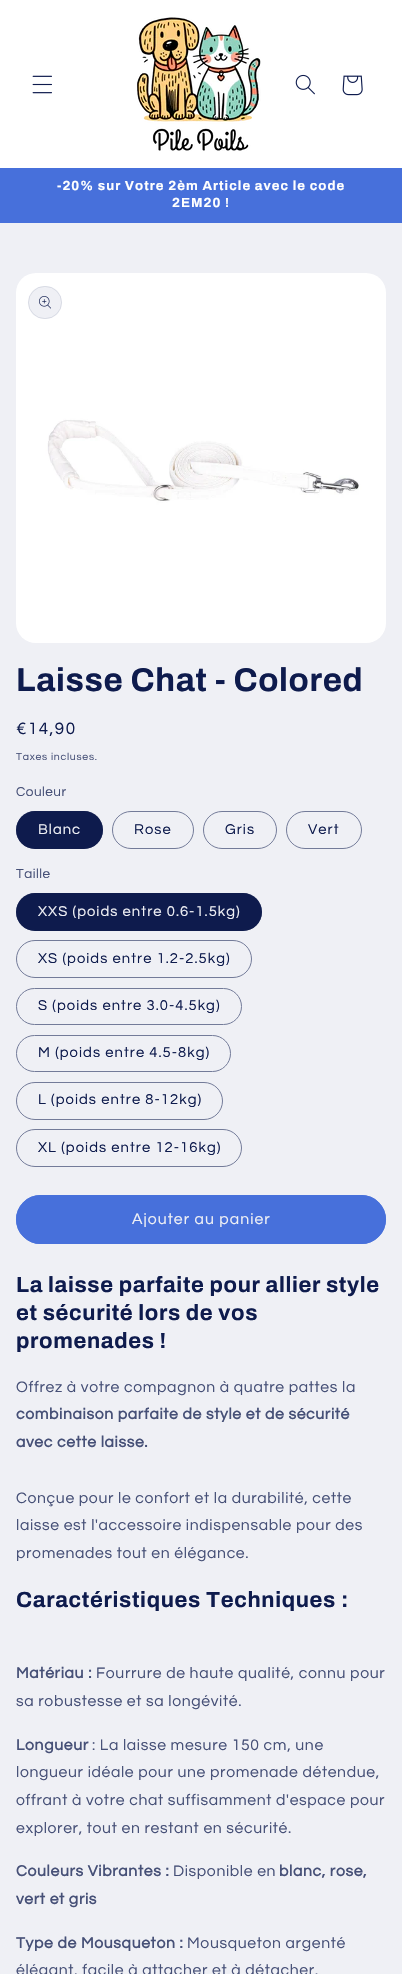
#include "include/core/SkBlurTypes.h"
#include "include/core/SkCanvas.h"
#include "include/core/SkData.h"
#include "include/core/SkFont.h"
#include "include/core/SkFontMgr.h"
#include "include/core/SkImage.h"
#include "include/core/SkMaskFilter.h"
#include "include/core/SkPaint.h"
#include "include/core/SkPathBuilder.h"
#include "include/core/SkTextBlob.h"
#include "include/effects/SkDashPathEffect.h"
#include "include/effects/SkGradientShader.h"
#include "include/utils/SkParsePath.h"

extern sk_sp<SkFontMgr> fontMgr;

static SkFont font(const char* family, int weight, float size, bool italic = false) {
    SkFontStyle style(weight, SkFontStyle::kNormal_Width,
        italic ? SkFontStyle::kItalic_Slant : SkFontStyle::kUpright_Slant);
    SkFont result(fontMgr->matchFamilyStyle(family, style), size);
    result.setSubpixel(true);
    return result;
}

static void drawTracked(SkCanvas* canvas, const char* s, float x, float y, const SkFont& font, const SkPaint& ink, float letter, float word) {
    std::vector<SkGlyphID> glyphs(font.countText(s, strlen(s), SkTextEncoding::kUTF8));
    std::vector<float> xs(glyphs.size());
    font.textToGlyphs(s, strlen(s), SkTextEncoding::kUTF8, glyphs);
    font.getXPos(glyphs, xs, x);
    float extra = 0;
    for (size_t i = 0; i < glyphs.size(); i++) {
        xs[i] += extra;
        extra += letter + word * (glyphs[i] == font.unicharToGlyph(' '));
    }
    canvas->drawTextBlob(SkTextBlob::MakeFromPosHGlyphs(glyphs, xs, y, font), 0, 0, ink);
}

static void fillRect(SkCanvas* canvas, float x, float y, float w, float h, SkColor color) {
    SkPaint ink(SkColor4f::FromColor(color));
    ink.setAntiAlias(true);
    canvas->drawRect(SkRect::MakeXYWH(x, y, w, h), ink);
}

static void fillRRect(SkCanvas* canvas, float x, float y, float w, float h, float radius, SkColor color) {
    SkPaint ink(SkColor4f::FromColor(color));
    ink.setAntiAlias(true);
    canvas->drawRoundRect(SkRect::MakeXYWH(x, y, w, h), radius, radius, ink);
}

static void drawPhoto(SkCanvas* canvas, const char* path, float x, float y, float w, float h) {
    auto image = SkImages::DeferredFromEncodedData(SkData::MakeFromFileName(path));
    canvas->drawImageRect(image, SkRect::MakeXYWH(x, y, w, h), SkSamplingOptions());
}

void draw(SkCanvas* canvas) {
    SkPaint paint;
    paint.setAntiAlias(true);
    canvas->clear(0xFFEFF0F5);
    fillRect(canvas, 0, 0, 402, 168, 0xFFFFFFFF);
    drawPhoto(canvas, "assets/img1.png", 32, 75, 20, 19);
    drawPhoto(canvas, "assets/img2.png", 137, 17, 124, 134);
    drawPhoto(canvas, "assets/img3.png", 295, 74, 20, 21);
    drawPhoto(canvas, "assets/img4.png", 342, 75, 21, 21);
    fillRect(canvas, 0, 168, 402, 55, 0xFF4770DB);
    SkFont font1 = font("Archivo", 700, 13.2f);
    paint.setColor(0xFFFFFFFF);
    drawTracked(canvas, "-20% sur Votre 2èm Article avec le code", 57, 190, font1, paint, 1.05f, 0);
    drawTracked(canvas, "2EM20 !", 172, 207, font1, paint, 1.05f, 0);
    drawPhoto(canvas, "assets/img5.png", 16, 273, 370, 370);
    fillRRect(canvas, 28, 286, 34, 33, 16.5f, 0xFFEFF0F5);
    paint.setStroke(true);
    paint.setStrokeWidth(1);
    paint.setColor(0x1A0E1B4D);
    canvas->drawRoundRect(SkRect::MakeXYWH(28.5f, 286.5f, 33, 32), 16, 16, paint);
    drawPhoto(canvas, "assets/img6.png", 39, 296, 12, 13);
    SkFont font2 = font("Archivo", 700, 33);
    paint.setStroke(false);
    paint.setColor(0xFF0E1B4D);
    drawTracked(canvas, "Laisse Chat - Colored", 16, 691, font2, paint, 0.65f, 0);
    SkFont font3 = font("Questrial", 400, 17);
    drawTracked(canvas, "€14,90", 16, 734, font3, paint, 1.5f, 0);
    SkFont font4 = font("Questrial", 400, 10.5f);
    paint.setColor(0xFF465077);
    drawTracked(canvas, "Taxes incluses.", 16, 760, font4, paint, 0.75f, 0);
    SkFont font5 = font("Questrial", 400, 13.5f);
    drawTracked(canvas, "Couleur", 16, 796, font5, paint, 0.5f, 0);
    fillRRect(canvas, 16, 811, 87, 38, 19, 0xFF0E1B4D);
    paint.setStroke(true);
    paint.setColor(0x8C0E1B4D);
    canvas->drawRoundRect(SkRect::MakeXYWH(16.5f, 811.5f, 86, 37), 18.5f, 18.5f, paint);
    SkFont font6 = font("Questrial", 400, 14.75f);
    paint.setStroke(false);
    paint.setColor(0xFFEFF0F5);
    drawTracked(canvas, "Blanc", 38, 834, font6, paint, 1.05f, 0);
    paint.setStroke(true);
    paint.setColor(0xFF737B99);
    canvas->drawRoundRect(SkRect::MakeXYWH(112.5f, 811.5f, 81, 37), 18.5f, 18.5f, paint);
    paint.setStroke(false);
    paint.setColor(0xFF0E1B4D);
    drawTracked(canvas, "Rose", 134, 834, font6, paint, 1.05f, 0);
    paint.setStroke(true);
    paint.setColor(0xFF737B99);
    canvas->drawRoundRect(SkRect::MakeXYWH(203.5f, 811.5f, 73, 37), 18.5f, 18.5f, paint);
    paint.setStroke(false);
    paint.setColor(0xFF0E1B4D);
    drawTracked(canvas, "Gris", 225, 834, font6, paint, 1.05f, 0);
    paint.setStroke(true);
    paint.setColor(0xFF737B99);
    canvas->drawRoundRect(SkRect::MakeXYWH(286.5f, 811.5f, 75, 37), 18.5f, 18.5f, paint);
    paint.setStroke(false);
    paint.setColor(0xFF0E1B4D);
    drawTracked(canvas, "Vert", 308, 834, font6, paint, 1.05f, 0);
    paint.setColor(0xFF465077);
    drawTracked(canvas, "Taille", 16, 878, font5, paint, 0.5f, 0);
    fillRRect(canvas, 16, 893, 246, 38, 19, 0xFF0E1B4D);
    paint.setStroke(true);
    paint.setColor(0x8C0E1B4D);
    canvas->drawRoundRect(SkRect::MakeXYWH(16.5f, 893.5f, 245, 37), 18.5f, 18.5f, paint);
    paint.setStroke(false);
    paint.setColor(0xFFEFF0F5);
    drawTracked(canvas, "XXS (poids entre 0.6-1.5kg)", 38, 916, font6, paint, 1.05f, 0);
    paint.setStroke(true);
    paint.setColor(0xFF737B99);
    canvas->drawRoundRect(SkRect::MakeXYWH(16.5f, 940.5f, 235, 37), 18.5f, 18.5f, paint);
    paint.setStroke(false);
    paint.setColor(0xFF0E1B4D);
    drawTracked(canvas, "XS (poids entre 1.2-2.5kg)", 38, 963, font6, paint, 1.05f, 0);
    paint.setStroke(true);
    paint.setColor(0xFF737B99);
    canvas->drawRoundRect(SkRect::MakeXYWH(16.5f, 988.5f, 225, 36), 18, 18, paint);
    paint.setStroke(false);
    paint.setColor(0xFF0E1B4D);
    drawTracked(canvas, "S (poids entre 3.0-4.5kg)", 38, 1010, font6, paint, 1.05f, 0);
    paint.setStroke(true);
    paint.setColor(0xFF737B99);
    canvas->drawRoundRect(SkRect::MakeXYWH(16.5f, 1035.5f, 214, 36), 18, 18, paint);
    paint.setStroke(false);
    paint.setColor(0xFF0E1B4D);
    drawTracked(canvas, "M (poids entre 4.5-8kg)", 38, 1057, font6, paint, 1.05f, 0);
    paint.setStroke(true);
    paint.setColor(0xFF737B99);
    canvas->drawRoundRect(SkRect::MakeXYWH(16.5f, 1082.5f, 206, 37), 18.5f, 18.5f, paint);
    paint.setStroke(false);
    paint.setColor(0xFF0E1B4D);
    drawTracked(canvas, "L (poids entre 8-12kg)", 38, 1104, font6, paint, 1.05f, 0);
    paint.setStroke(true);
    paint.setColor(0xFF737B99);
    canvas->drawRoundRect(SkRect::MakeXYWH(16.5f, 1129.5f, 225, 37), 18.5f, 18.5f, paint);
    paint.setStroke(false);
    paint.setColor(0xFF0E1B4D);
    drawTracked(canvas, "XL (poids entre 12-16kg)", 38, 1152, font6, paint, 1.05f, 0);
    fillRRect(canvas, 16, 1195, 370, 49, 24.5f, 0xFF4770DB);
    paint.setStroke(true);
    paint.setColor(0xFF4770DB);
    canvas->drawRoundRect(SkRect::MakeXYWH(16.5f, 1195.5f, 369, 48), 24, 24, paint);
    SkFont font7 = font("Questrial", 400, 15.75f);
    paint.setStroke(false);
    paint.setColor(0xFFEFF0F5);
    drawTracked(canvas, "Ajouter au panier", 132, 1224, font7, paint, 1.05f, 0);
    SkFont font8 = font("Archivo", 700, 22);
    paint.setColor(0xFF0E1B4D);
    drawTracked(canvas, "La laisse parfaite pour allier style", 16, 1292, font8, paint, 0.65f, 0);
    drawTracked(canvas, "et sécurité lors de vos", 16, 1320, font8, paint, 0.65f, 0);
    drawTracked(canvas, "promenades !", 16, 1348, font8, paint, 0.65f, 0);
    paint.setColor(0xFF465077);
    drawTracked(canvas, "Offrez à votre compagnon à quatre pattes la", 16, 1392, font7, paint, 0.65f, 0);
    SkFont font9 = font("Questrial", 700, 15.75f);
    drawTracked(canvas, "combinaison parfaite de style et de sécurité", 16, 1419, font9, paint, 0.65f, 0);
    drawTracked(canvas, "avec cette laisse.", 16, 1447, font9, paint, 0.65f, 0);
    drawTracked(canvas, "Conçue pour le confort et la durabilité, cette", 16, 1503, font7, paint, 0.65f, 0);
    drawTracked(canvas, "laisse est l'accessoire indispensable pour des", 16, 1530, font7, paint, 0.65f, 0);
    drawTracked(canvas, "promenades tout en élégance.", 16, 1558, font7, paint, 0.65f, 0);
    paint.setColor(0xFF0E1B4D);
    drawTracked(canvas, "Caractéristiques Techniques :", 16, 1607, font8, paint, 0.65f, 0);
    paint.setColor(0xFF465077);
    drawTracked(canvas, "Matériau :", 16, 1678, font9, paint, 0.65f, 0);
    drawTracked(canvas, "Fourrure de haute qualité, connu pour", 96, 1678, font7, paint, 0.65f, 0);
    drawTracked(canvas, "sa robustesse et sa longévité.", 16, 1706, font7, paint, 0.65f, 0);
    drawTracked(canvas, "Longueur", 16, 1750, font9, paint, 0.65f, 0);
    drawTracked(canvas, ": La laisse mesure 150 cm, une", 92, 1750, font7, paint, 0.65f, 0);
    drawTracked(canvas, "longueur idéale pour une promenade détendue,", 16, 1777, font7, paint, 0.65f, 0);
    drawTracked(canvas, "offrant à votre chat suffisamment d'espace pour", 16, 1805, font7, paint, 0.65f, 0);
    drawTracked(canvas, "explorer, tout en restant en sécurité.", 16, 1833, font7, paint, 0.65f, 0);
    drawTracked(canvas, "Couleurs Vibrantes :", 16, 1876, font9, paint, 0.65f, 0);
    drawTracked(canvas, "Disponible en", 173, 1876, font7, paint, 0.65f, 0);
    drawTracked(canvas, "blanc, rose,", 279, 1876, font9, paint, 0.65f, 0);
    drawTracked(canvas, "vert et gris", 16, 1904, font9, paint, 0.65f, 0);
    drawTracked(canvas, "Type de Mousqueton :", 16, 1948, font9, paint, 0.65f, 0);
    drawTracked(canvas, "Mousqueton argenté", 187, 1948, font7, paint, 0.65f, 0);
    drawTracked(canvas, "élégant, facile à attacher et à détacher,", 16, 1975, font7, paint, 0.65f, 0);
}
